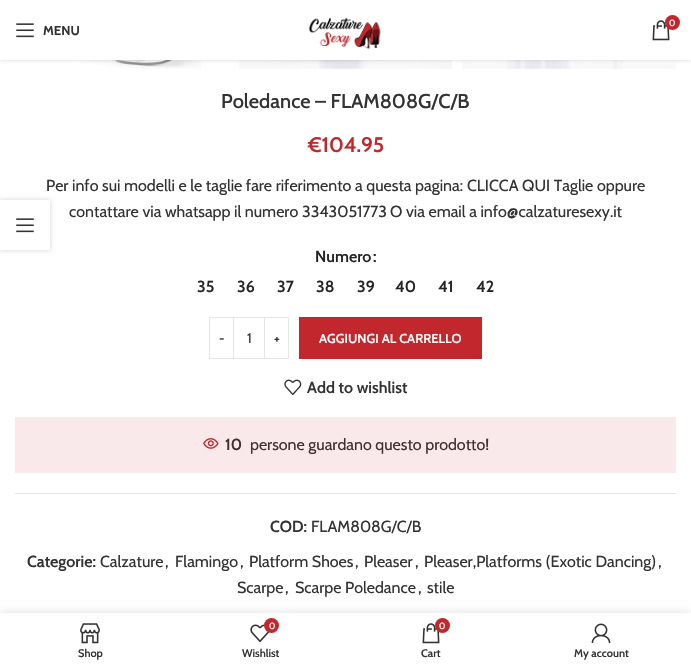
#include "include/core/SkBlurTypes.h"
#include "include/core/SkCanvas.h"
#include "include/core/SkData.h"
#include "include/core/SkFont.h"
#include "include/core/SkFontMgr.h"
#include "include/core/SkImage.h"
#include "include/core/SkMaskFilter.h"
#include "include/core/SkPaint.h"
#include "include/core/SkPathBuilder.h"
#include "include/core/SkTextBlob.h"
#include "include/effects/SkDashPathEffect.h"
#include "include/effects/SkGradientShader.h"
#include "include/utils/SkParsePath.h"

extern sk_sp<SkFontMgr> fontMgr;

static SkFont font(const char* family, int weight, float size, bool italic = false) {
    SkFontStyle style(weight, SkFontStyle::kNormal_Width,
        italic ? SkFontStyle::kItalic_Slant : SkFontStyle::kUpright_Slant);
    SkFont result(fontMgr->matchFamilyStyle(family, style), size);
    result.setSubpixel(true);
    return result;
}

static void drawLabel(SkCanvas* canvas, const char* s, float x, float y, const SkFont& font, SkColor color) {
    SkPaint ink(SkColor4f::FromColor(color));
    ink.setAntiAlias(true);
    canvas->drawString(s, x, y, font, ink);
}

static void fillRect(SkCanvas* canvas, float x, float y, float w, float h, SkColor color) {
    SkPaint ink(SkColor4f::FromColor(color));
    ink.setAntiAlias(true);
    canvas->drawRect(SkRect::MakeXYWH(x, y, w, h), ink);
}

static void drawPhoto(SkCanvas* canvas, const char* path, float x, float y, float w, float h) {
    auto image = SkImages::DeferredFromEncodedData(SkData::MakeFromFileName(path));
    canvas->drawImageRect(image, SkRect::MakeXYWH(x, y, w, h), SkSamplingOptions());
}

static SkPath parsePath(const char* data, bool evenOdd = false) {
    SkPath result = *SkParsePath::FromSVGString(data);
    if (evenOdd) result.setFillType(SkPathFillType::kEvenOdd);
    return result;
}

void draw(SkCanvas* canvas) {
    SkPaint paint;
    paint.setAntiAlias(true);
    canvas->clear(0xFFFFFFFF);
    fillRect(canvas, 15, 417, 661, 56, 0xFFF9E9EA);
    drawPhoto(canvas, "assets/img4.png", 51, 60, 150, 9);
    drawPhoto(canvas, "assets/img5.png", 239, 60, 213, 9);
    drawPhoto(canvas, "assets/img6.png", 462, 60, 214, 9);
    paint.setColor(0x1A000000);
    paint.setMaskFilter(SkMaskFilter::MakeBlur(kNormal_SkBlurStyle, 1.5f));
    canvas->drawRect(SkRect::MakeXYWH(0, 1, 691, 60), paint);
    paint.setMaskFilter(nullptr);
    fillRect(canvas, 0, 0, 691, 60, 0xFFFFFFFF);
    drawPhoto(canvas, "assets/img1.png", 308, 17, 73, 32);
    drawPhoto(canvas, "assets/img2.png", 652, 20, 18, 21);
    paint.setColor(0xFFC1272D);
    canvas->drawCircle(672.5f, 22.5f, 7.5f, paint);
    SkFont font1 = font("Cabin", 400, 9);
    drawLabel(canvas, "0", 669, 26, font1, 0xFFFFFFFF);
    drawPhoto(canvas, "assets/img3.png", 16, 23, 18, 15);
    SkFont font2 = font("Cabin", 700, 13);
    drawLabel(canvas, "MENU", 43, 35, font2, 0xFF333333);
    SkFont font3 = font("Cabin", 500, 20);
    drawLabel(canvas, "Poledance – FLAM808G/C/B", 221, 108, font3, 0xFF333333);
    SkFont font4 = font("Cabin", 600, 21);
    drawLabel(canvas, "€104.95", 308, 152, font4, 0xFFC1272D);
    SkFont font5 = font("Cabin", 400, 16);
    drawLabel(canvas, "Per info sui modelli e le taglie fare riferimento a questa pagina:", 46, 191, font5, 0xFF333333);
    drawLabel(canvas, "CLICCA QUI Taglie", 467, 191, font5, 0xFF333333);
    drawLabel(canvas, "oppure", 597, 191, font5, 0xFF333333);
    drawLabel(canvas, "contattare via whatsapp il numero", 69, 217, font5, 0xFF333333);
    drawLabel(canvas, "3343051773", 302, 217, font5, 0xFF333333);
    drawLabel(canvas, "O via email a info@calzaturesexy.it", 390, 217, font5, 0xFF333333);
    SkFont font6 = font("Cabin", 600, 16);
    drawLabel(canvas, "Numero", 315, 262, font6, 0xFF242424);
    drawLabel(canvas, ":", 373, 262, font6, 0xFF242424);
    drawLabel(canvas, "35", 197, 292, font6, 0xFF242424);
    drawLabel(canvas, "36", 237, 292, font6, 0xFF242424);
    drawLabel(canvas, "37", 277, 292, font6, 0xFF242424);
    drawLabel(canvas, "38", 316, 292, font6, 0xFF242424);
    drawLabel(canvas, "39", 357, 292, font6, 0xFF242424);
    drawLabel(canvas, "40", 395, 292, font6, 0xFF242424);
    drawLabel(canvas, "41", 438, 292, font6, 0xFF242424);
    drawLabel(canvas, "42", 476, 292, font6, 0xFF242424);
    paint.setStroke(true);
    paint.setStrokeWidth(1);
    paint.setColor(0xFFE6E6E6);
    canvas->drawRect(SkRect::MakeXYWH(209.5f, 317.5f, 24, 41), paint);
    SkFont font7 = font("Cabin", 600, 13);
    drawLabel(canvas, "-", 219, 343, font7, 0xFF333333);
    fillRect(canvas, 234, 317, 30, 1, 0xFFE6E6E6);
    fillRect(canvas, 234, 358, 30, 1, 0xFFE6E6E6);
    SkFont font8 = font("Cabin", 400, 14);
    drawLabel(canvas, "1", 247, 343, font8, 0xFF333333);
    canvas->drawRect(SkRect::MakeXYWH(264.5f, 317.5f, 24, 41), paint);
    drawLabel(canvas, "+", 274, 343, font7, 0xFF333333);
    fillRect(canvas, 299, 317, 183, 42, 0xFFC1272D);
    drawLabel(canvas, "AGGIUNGI AL CARRELLO", 319, 343, font7, 0xFFFFFFFF);
    drawPhoto(canvas, "assets/img7.png", 284, 379, 18, 16);
    drawLabel(canvas, "Add to wishlist", 307, 393, font6, 0xFF333333);
    drawPhoto(canvas, "assets/img8.png", 203, 438, 16, 11);
    drawLabel(canvas, "10", 225, 450, font6, 0xFF413232);
    drawLabel(canvas, "persone guardano questo prodotto!", 250, 450, font5, 0xFF413232);
    fillRect(canvas, 15, 493, 661, 1, 0xFFE4E4E4);
    drawLabel(canvas, "COD:", 270, 532, font6, 0xFF333333);
    drawLabel(canvas, "FLAM808G/C/B", 311, 532, font5, 0xFF333333);
    drawLabel(canvas, "Categorie:", 27, 567, font6, 0xFF333333);
    drawLabel(canvas, "Calzature", 100, 567, font5, 0xFF333333);
    drawLabel(canvas, ",", 165, 567, font5, 0xFF333333);
    drawLabel(canvas, "Flamingo", 175, 567, font5, 0xFF333333);
    drawLabel(canvas, ",", 240, 567, font5, 0xFF333333);
    drawLabel(canvas, "Platform Shoes", 249, 567, font5, 0xFF333333);
    drawLabel(canvas, ",", 355, 567, font5, 0xFF333333);
    drawLabel(canvas, "Pleaser", 364, 567, font5, 0xFF333333);
    drawLabel(canvas, ",", 415, 567, font5, 0xFF333333);
    drawLabel(canvas, "Pleaser,Platforms (Exotic Dancing)", 424, 567, font5, 0xFF333333);
    drawLabel(canvas, ",", 658, 567, font5, 0xFF333333);
    drawLabel(canvas, "Scarpe", 237, 593, font5, 0xFF333333);
    drawLabel(canvas, ",", 285, 593, font5, 0xFF333333);
    drawLabel(canvas, "Scarpe Poledance", 295, 593, font5, 0xFF333333);
    drawLabel(canvas, ",", 418, 593, font5, 0xFF333333);
    drawLabel(canvas, "stile", 427, 593, font5, 0xFF333333);
    canvas->save();
    canvas->clipPath(parsePath("M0 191H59V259H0ZM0 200H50V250H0Z", true), true);
    paint.setStroke(false);
    paint.setColor(0x2B000000);
    paint.setMaskFilter(SkMaskFilter::MakeBlur(kNormal_SkBlurStyle, 2.5f));
    canvas->drawRect(SkRect::MakeXYWH(0, 200, 50, 50), paint);
    paint.setMaskFilter(nullptr);
    canvas->restore();
    drawPhoto(canvas, "assets/img3.png", 16, 218, 18, 15);
    paint.setColor(0x1F000000);
    paint.setMaskFilter(SkMaskFilter::MakeBlur(kNormal_SkBlurStyle, 4.5f));
    canvas->drawRect(SkRect::MakeXYWH(0, 613, 691, 55), paint);
    paint.setMaskFilter(nullptr);
    fillRect(canvas, 0, 613, 691, 55, 0xFFFFFFFF);
    drawPhoto(canvas, "assets/img9.png", 80, 623, 20, 21);
    SkFont font9 = font("Cabin", 600, 11);
    drawLabel(canvas, "Shop", 78, 657, font9, 0xFF333333);
    drawPhoto(canvas, "assets/img10.png", 250, 624, 20, 18);
    paint.setColor(0xFFC1272D);
    canvas->drawCircle(271.5f, 625.5f, 7.5f, paint);
    drawLabel(canvas, "0", 269, 629, font1, 0xFFFFFFFF);
    drawLabel(canvas, "Wishlist", 242, 657, font9, 0xFF333333);
    drawPhoto(canvas, "assets/img2.png", 422, 623, 18, 21);
    canvas->drawCircle(442.5f, 625.5f, 7.5f, paint);
    drawLabel(canvas, "0", 439, 629, font1, 0xFFFFFFFF);
    drawLabel(canvas, "Cart", 421, 657, font9, 0xFF333333);
    drawPhoto(canvas, "assets/img11.png", 591, 623, 20, 20);
    drawLabel(canvas, "My account", 574, 657, font9, 0xFF333333);
}
